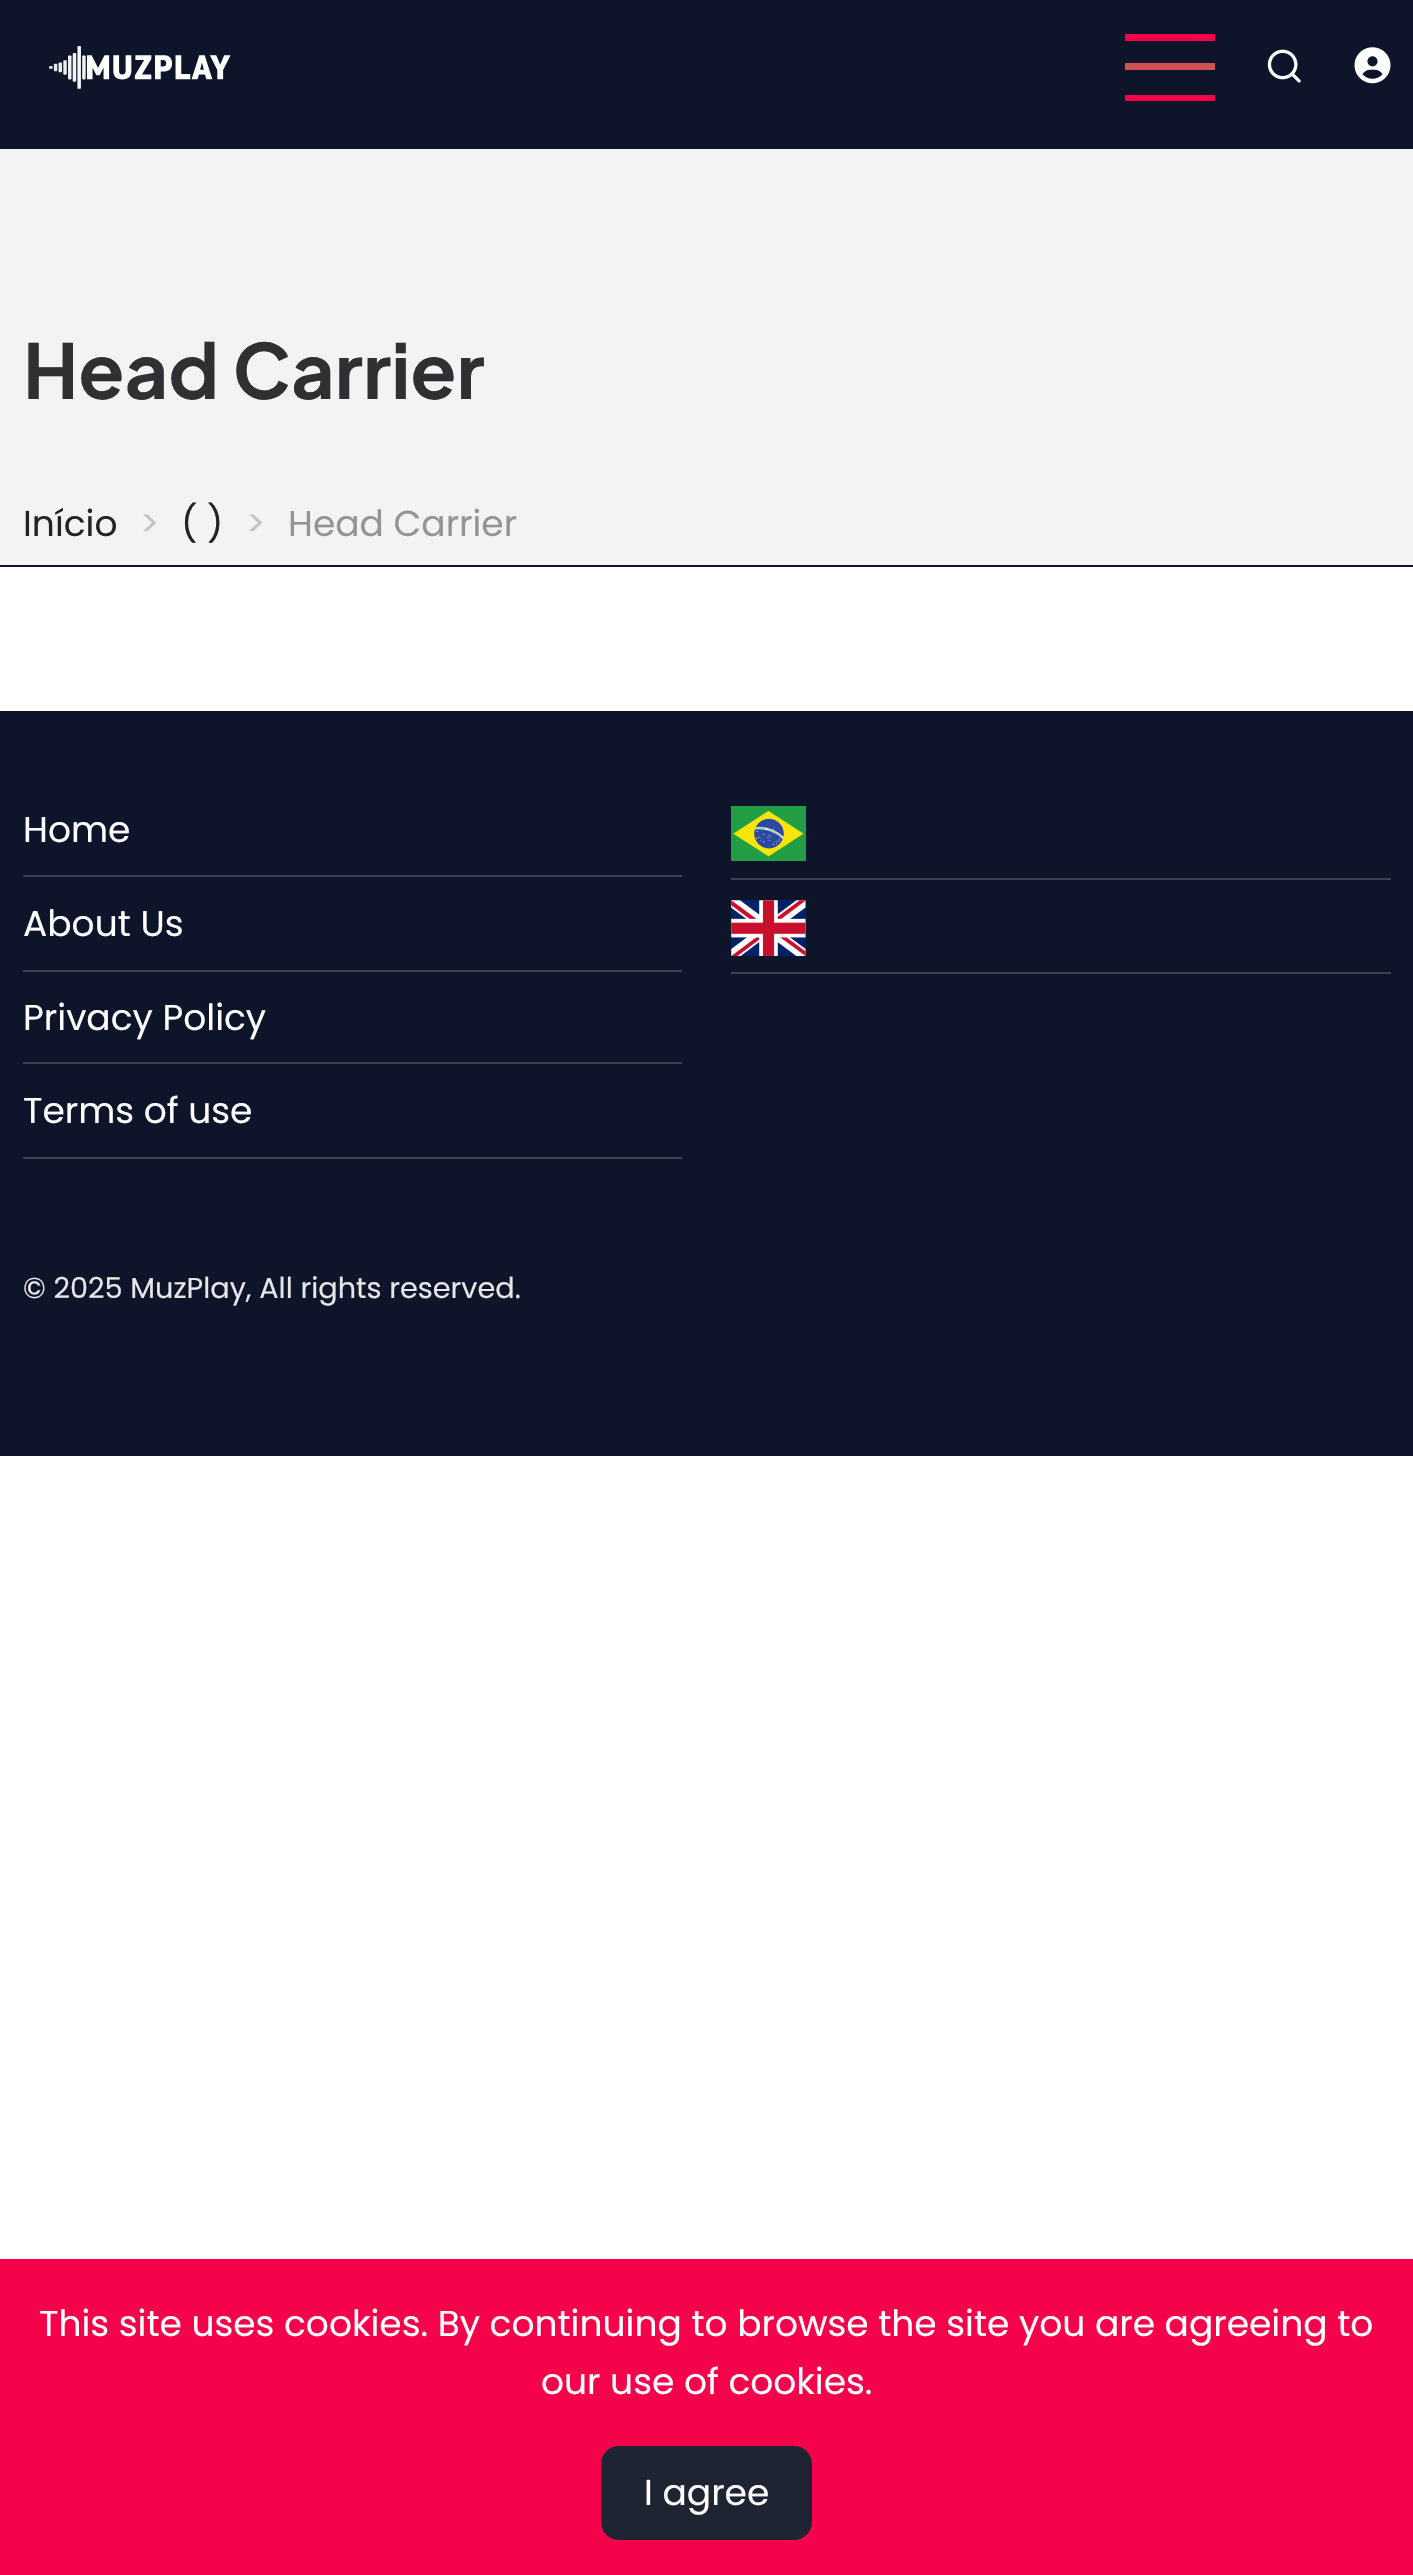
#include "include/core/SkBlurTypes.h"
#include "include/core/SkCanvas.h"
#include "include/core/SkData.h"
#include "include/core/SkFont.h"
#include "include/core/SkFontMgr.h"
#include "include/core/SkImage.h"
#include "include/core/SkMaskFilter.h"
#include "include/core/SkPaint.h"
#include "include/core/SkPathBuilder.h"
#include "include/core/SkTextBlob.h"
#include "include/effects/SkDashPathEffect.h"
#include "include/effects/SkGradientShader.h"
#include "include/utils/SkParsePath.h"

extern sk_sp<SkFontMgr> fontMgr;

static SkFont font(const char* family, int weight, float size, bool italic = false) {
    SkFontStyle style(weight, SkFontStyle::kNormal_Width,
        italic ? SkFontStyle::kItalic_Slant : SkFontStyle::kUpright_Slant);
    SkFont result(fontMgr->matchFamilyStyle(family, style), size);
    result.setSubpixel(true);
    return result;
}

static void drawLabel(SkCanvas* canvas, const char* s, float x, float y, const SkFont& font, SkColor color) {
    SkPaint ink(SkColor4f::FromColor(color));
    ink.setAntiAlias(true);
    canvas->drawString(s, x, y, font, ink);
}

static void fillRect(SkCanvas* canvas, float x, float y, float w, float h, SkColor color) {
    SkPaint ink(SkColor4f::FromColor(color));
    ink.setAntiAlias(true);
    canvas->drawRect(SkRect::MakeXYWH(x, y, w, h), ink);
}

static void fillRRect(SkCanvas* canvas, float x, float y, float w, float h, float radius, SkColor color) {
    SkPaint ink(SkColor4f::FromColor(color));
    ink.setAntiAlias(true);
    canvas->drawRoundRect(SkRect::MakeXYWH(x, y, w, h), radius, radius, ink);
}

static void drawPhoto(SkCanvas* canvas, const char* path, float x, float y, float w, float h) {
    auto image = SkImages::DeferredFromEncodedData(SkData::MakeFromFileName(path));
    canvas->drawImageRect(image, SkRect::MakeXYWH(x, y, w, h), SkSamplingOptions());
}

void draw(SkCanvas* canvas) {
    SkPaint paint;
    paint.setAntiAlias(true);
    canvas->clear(0xFFFFFFFF);
    fillRect(canvas, 0, 0, 1413, 567, 0xFF0E152A);
    drawPhoto(canvas, "assets/img1.png", 49, 46, 182, 43);
    fillRect(canvas, 1125, 34, 90, 7, 0xFFF5034A);
    fillRect(canvas, 1125, 63, 90, 7, 0xFFD15253);
    fillRect(canvas, 1125, 95, 90, 6, 0xFFF5034A);
    drawPhoto(canvas, "assets/img2.png", 1267, 49, 34, 34);
    drawPhoto(canvas, "assets/img3.png", 1354, 47, 37, 37);
    fillRect(canvas, 0, 149, 1413, 416, 0xFFF3F3F3);
    SkFont font1 = font("Plus Jakarta Sans", 700, 75.5f);
    drawLabel(canvas, "Head Carrier", 23, 399, font1, 0xFF2E3032);
    SkFont font2 = font("Poppins", 400, 36);
    drawLabel(canvas, "Início", 23, 536, font2, 0xFF232323);
    drawLabel(canvas, ">", 140, 536, font2, 0xFFC3C3C3);
    drawLabel(canvas, "( )", 181, 536, font2, 0xFF232323);
    drawLabel(canvas, ">", 246, 536, font2, 0xFFC3C3C3);
    drawLabel(canvas, "Head Carrier", 288, 536, font2, 0xFF949494);
    fillRect(canvas, 0, 711, 1413, 745, 0xFF0E152A);
    drawLabel(canvas, "Home", 23, 842, font2, 0xFFFFFFFF);
    fillRect(canvas, 23, 875, 659, 2, 0xFF3D4353);
    drawLabel(canvas, "About Us", 23, 936, font2, 0xFFFFFFFF);
    fillRect(canvas, 23, 970, 659, 2, 0xFF3D4353);
    drawLabel(canvas, "Privacy Policy", 23, 1030, font2, 0xFFFFFFFF);
    fillRect(canvas, 23, 1062, 659, 2, 0xFF3D4353);
    drawLabel(canvas, "Terms of use", 23, 1123, font2, 0xFFFFFFFF);
    fillRect(canvas, 23, 1157, 659, 2, 0xFF3D4353);
    drawPhoto(canvas, "assets/img4.png", 731, 806, 75, 55);
    fillRect(canvas, 731, 878, 660, 2, 0xFF3D4353);
    drawPhoto(canvas, "assets/img5.png", 731, 900, 75, 56);
    fillRect(canvas, 731, 972, 660, 2, 0xFF3D4353);
    SkFont font3 = font("Poppins", 400, 28.75f);
    drawLabel(canvas, "© 2025 MuzPlay, All rights reserved.", 23, 1298, font3, 0xFFE6E6E6);
    fillRect(canvas, 0, 2259, 1413, 316, 0xFFF5034A);
    drawLabel(canvas, "This site uses cookies. By continuing to browse the site you are agreeing to", 39, 2336, font2, 0xFFFFFFFF);
    drawLabel(canvas, "our use of cookies.", 541, 2394, font2, 0xFFFFFFFF);
    fillRRect(canvas, 601, 2446, 211, 94, 18, 0xFF1F2433);
    drawLabel(canvas, "I agree", 644, 2505, font2, 0xFFFFFFFF);
}
